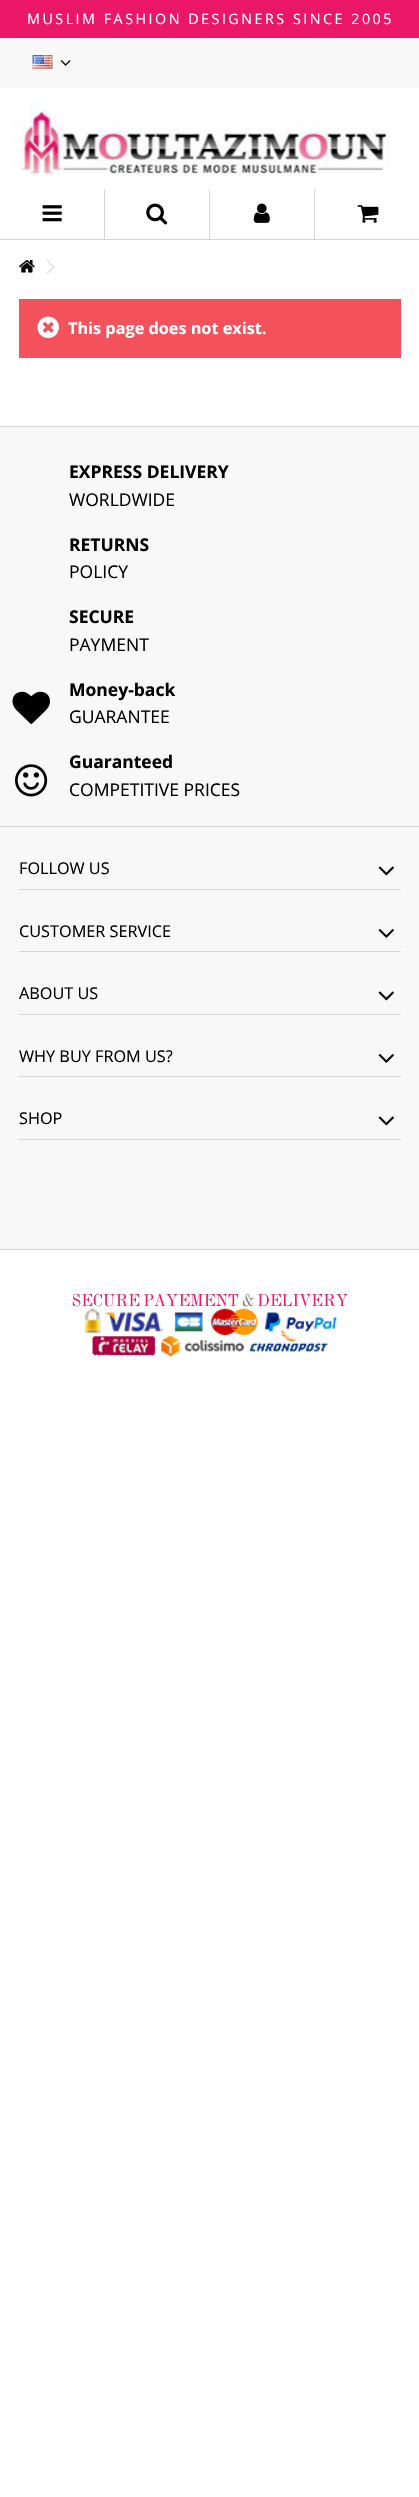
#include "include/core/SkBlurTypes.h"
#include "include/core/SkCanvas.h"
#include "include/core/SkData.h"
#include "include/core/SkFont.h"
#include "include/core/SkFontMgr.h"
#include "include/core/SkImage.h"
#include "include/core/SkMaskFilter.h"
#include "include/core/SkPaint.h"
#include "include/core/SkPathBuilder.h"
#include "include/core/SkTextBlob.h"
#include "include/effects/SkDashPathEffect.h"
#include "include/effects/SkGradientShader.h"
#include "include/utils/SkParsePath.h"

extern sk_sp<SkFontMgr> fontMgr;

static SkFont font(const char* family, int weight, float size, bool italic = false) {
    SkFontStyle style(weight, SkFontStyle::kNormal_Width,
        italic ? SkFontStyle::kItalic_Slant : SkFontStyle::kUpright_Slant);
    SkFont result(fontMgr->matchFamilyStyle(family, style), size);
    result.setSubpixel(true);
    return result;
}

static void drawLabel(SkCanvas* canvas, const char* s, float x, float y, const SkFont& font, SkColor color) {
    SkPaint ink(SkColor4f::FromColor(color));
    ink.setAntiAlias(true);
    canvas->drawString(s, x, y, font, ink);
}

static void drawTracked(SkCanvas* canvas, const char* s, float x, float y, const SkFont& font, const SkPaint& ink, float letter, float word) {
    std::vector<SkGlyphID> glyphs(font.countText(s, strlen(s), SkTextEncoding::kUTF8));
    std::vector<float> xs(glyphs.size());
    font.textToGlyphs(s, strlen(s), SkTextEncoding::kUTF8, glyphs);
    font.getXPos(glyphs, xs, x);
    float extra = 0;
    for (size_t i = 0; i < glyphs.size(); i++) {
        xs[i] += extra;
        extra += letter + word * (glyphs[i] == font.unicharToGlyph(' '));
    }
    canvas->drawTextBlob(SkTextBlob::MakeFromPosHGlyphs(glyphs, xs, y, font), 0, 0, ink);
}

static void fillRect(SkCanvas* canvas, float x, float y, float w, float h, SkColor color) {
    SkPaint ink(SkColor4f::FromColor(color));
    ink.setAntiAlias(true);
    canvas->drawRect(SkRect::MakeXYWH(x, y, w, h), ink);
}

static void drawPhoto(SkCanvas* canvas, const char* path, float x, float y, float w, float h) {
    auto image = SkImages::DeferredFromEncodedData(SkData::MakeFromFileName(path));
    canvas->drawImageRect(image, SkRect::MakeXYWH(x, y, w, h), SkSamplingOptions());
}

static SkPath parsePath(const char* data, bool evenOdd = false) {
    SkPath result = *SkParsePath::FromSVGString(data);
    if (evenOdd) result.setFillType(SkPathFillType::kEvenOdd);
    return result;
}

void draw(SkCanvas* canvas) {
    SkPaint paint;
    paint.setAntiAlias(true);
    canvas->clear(0xFFFFFFFF);
    fillRect(canvas, 0, 0, 419, 38, 0xFFEA1667);
    SkFont font1 = font("Open Sans", 400, 14.3f);
    paint.setColor(0xFFFFFFFF);
    drawTracked(canvas, "MUSLIM FASHION DESIGNERS SINCE 2005", 27, 24, font1, paint, 2.5f, 0);
    fillRect(canvas, 0, 38, 419, 50, 0xFFF8F8F8);
    drawPhoto(canvas, "assets/img1.png", 32, 55, 21, 14);
    drawPhoto(canvas, "assets/img2.png", 60, 60, 11, 6);
    fillRect(canvas, 0, 239, 419, 1, 0xFFD6D4D4);
    drawPhoto(canvas, "assets/img3.png", 12, 100, 378, 77);
    fillRect(canvas, 104, 189, 1, 50, 0xFFD6D4D4);
    drawPhoto(canvas, "assets/img4.png", 42, 205, 20, 17);
    fillRect(canvas, 209, 189, 1, 50, 0xFFD6D4D4);
    drawPhoto(canvas, "assets/img5.png", 146, 203, 22, 22);
    fillRect(canvas, 314, 189, 1, 50, 0xFFD6D4D4);
    drawPhoto(canvas, "assets/img6.png", 253, 203, 17, 20);
    drawPhoto(canvas, "assets/img7.png", 357, 205, 22, 18);
    drawPhoto(canvas, "assets/img8.png", 19, 260, 16, 13);
    paint.setColor(0xFFDDDDDD);
    canvas->drawPath(parsePath("M47.5 259.5L54.5 267L53.5 267.5L46.5 260.5Z"), paint);
    canvas->drawPath(parsePath("M53.5 266L54.5 267L47.5 274L46.5 273Z"), paint);
    fillRect(canvas, 19, 299, 382, 59, 0xFFF3515C);
    drawPhoto(canvas, "assets/img9.png", 37, 316, 22, 22);
    SkFont font2 = font("Open Sans", 700, 16.25f);
    drawLabel(canvas, "This page does not exist.", 68, 334, font2, 0xFFFFFFFF);
    fillRect(canvas, 0, 427, 419, 399, 0xFFF8F8F8);
    fillRect(canvas, 0, 426, 419, 1, 0xFFD6D4D4);
    SkFont font3 = font("Open Sans", 700, 17.5f);
    drawLabel(canvas, "EXPRESS DELIVERY", 69, 478, font3, 0xFF000000);
    SkFont font4 = font("Open Sans", 400, 17.5f);
    drawLabel(canvas, "WORLDWIDE", 69, 506, font4, 0xFF000000);
    drawLabel(canvas, "RETURNS", 69, 551, font3, 0xFF000000);
    drawLabel(canvas, "POLICY", 69, 578, font4, 0xFF000000);
    drawLabel(canvas, "SECURE", 69, 623, font3, 0xFF000000);
    drawLabel(canvas, "PAYMENT", 69, 651, font4, 0xFF000000);
    drawPhoto(canvas, "assets/img10.png", 12, 691, 38, 33);
    drawLabel(canvas, "Money-back", 69, 696, font3, 0xFF000000);
    drawLabel(canvas, "GUARANTEE", 69, 723, font4, 0xFF000000);
    drawPhoto(canvas, "assets/img11.png", 15, 764, 33, 33);
    drawLabel(canvas, "Guaranteed", 69, 768, font3, 0xFF000000);
    drawLabel(canvas, "COMPETITIVE PRICES", 69, 796, font4, 0xFF000000);
    fillRect(canvas, 0, 827, 419, 422, 0xFFF8F8F8);
    fillRect(canvas, 0, 826, 419, 1, 0xFFD6D4D4);
    fillRect(canvas, 0, 1249, 419, 1, 0xFFD6D4D4);
    fillRect(canvas, 19, 889, 382, 1, 0xFFD6D4D4);
    SkFont font5 = font("Open Sans", 400, 16.25f);
    drawLabel(canvas, "FOLLOW US", 19, 874, font5, 0xFF000000);
    drawPhoto(canvas, "assets/img12.png", 378, 866, 16, 10);
    fillRect(canvas, 19, 951, 382, 1, 0xFFD6D4D4);
    drawLabel(canvas, "CUSTOMER SERVICE", 19, 937, font5, 0xFF000000);
    drawPhoto(canvas, "assets/img13.png", 378, 929, 16, 9);
    fillRect(canvas, 19, 1014, 382, 1, 0xFFD6D4D4);
    drawLabel(canvas, "ABOUT US", 19, 999, font5, 0xFF000000);
    drawPhoto(canvas, "assets/img12.png", 378, 991, 16, 10);
    fillRect(canvas, 19, 1076, 382, 1, 0xFFD6D4D4);
    drawLabel(canvas, "WHY BUY FROM US?", 19, 1062, font5, 0xFF000000);
    drawPhoto(canvas, "assets/img13.png", 378, 1054, 16, 9);
    fillRect(canvas, 19, 1139, 382, 1, 0xFFD6D4D4);
    drawLabel(canvas, "SHOP", 19, 1124, font5, 0xFF000000);
    drawPhoto(canvas, "assets/img12.png", 378, 1116, 16, 10);
    SkFont font6 = font("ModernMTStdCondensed", 400, 18.75f);
    drawLabel(canvas, "SECURE PAYEMENT", 72, 1306, font6, 0xFFEA1667);
    drawLabel(canvas, "&", 242, 1306, font6, 0xFF777777);
    drawLabel(canvas, "DELIVERY", 257, 1306, font6, 0xFFEA1667);
    drawPhoto(canvas, "assets/img14.png", 84, 1308, 253, 27);
    drawPhoto(canvas, "assets/img15.png", 92, 1329, 236, 28);
}
